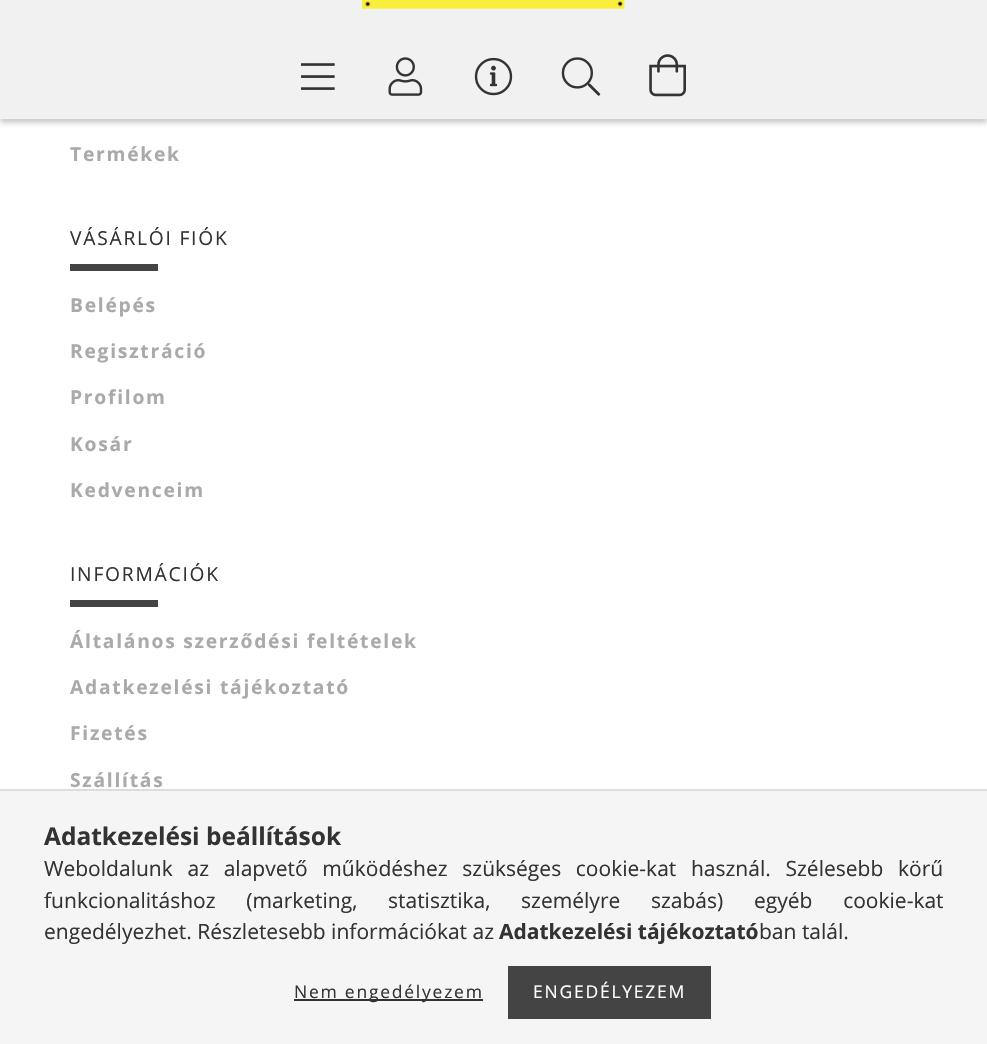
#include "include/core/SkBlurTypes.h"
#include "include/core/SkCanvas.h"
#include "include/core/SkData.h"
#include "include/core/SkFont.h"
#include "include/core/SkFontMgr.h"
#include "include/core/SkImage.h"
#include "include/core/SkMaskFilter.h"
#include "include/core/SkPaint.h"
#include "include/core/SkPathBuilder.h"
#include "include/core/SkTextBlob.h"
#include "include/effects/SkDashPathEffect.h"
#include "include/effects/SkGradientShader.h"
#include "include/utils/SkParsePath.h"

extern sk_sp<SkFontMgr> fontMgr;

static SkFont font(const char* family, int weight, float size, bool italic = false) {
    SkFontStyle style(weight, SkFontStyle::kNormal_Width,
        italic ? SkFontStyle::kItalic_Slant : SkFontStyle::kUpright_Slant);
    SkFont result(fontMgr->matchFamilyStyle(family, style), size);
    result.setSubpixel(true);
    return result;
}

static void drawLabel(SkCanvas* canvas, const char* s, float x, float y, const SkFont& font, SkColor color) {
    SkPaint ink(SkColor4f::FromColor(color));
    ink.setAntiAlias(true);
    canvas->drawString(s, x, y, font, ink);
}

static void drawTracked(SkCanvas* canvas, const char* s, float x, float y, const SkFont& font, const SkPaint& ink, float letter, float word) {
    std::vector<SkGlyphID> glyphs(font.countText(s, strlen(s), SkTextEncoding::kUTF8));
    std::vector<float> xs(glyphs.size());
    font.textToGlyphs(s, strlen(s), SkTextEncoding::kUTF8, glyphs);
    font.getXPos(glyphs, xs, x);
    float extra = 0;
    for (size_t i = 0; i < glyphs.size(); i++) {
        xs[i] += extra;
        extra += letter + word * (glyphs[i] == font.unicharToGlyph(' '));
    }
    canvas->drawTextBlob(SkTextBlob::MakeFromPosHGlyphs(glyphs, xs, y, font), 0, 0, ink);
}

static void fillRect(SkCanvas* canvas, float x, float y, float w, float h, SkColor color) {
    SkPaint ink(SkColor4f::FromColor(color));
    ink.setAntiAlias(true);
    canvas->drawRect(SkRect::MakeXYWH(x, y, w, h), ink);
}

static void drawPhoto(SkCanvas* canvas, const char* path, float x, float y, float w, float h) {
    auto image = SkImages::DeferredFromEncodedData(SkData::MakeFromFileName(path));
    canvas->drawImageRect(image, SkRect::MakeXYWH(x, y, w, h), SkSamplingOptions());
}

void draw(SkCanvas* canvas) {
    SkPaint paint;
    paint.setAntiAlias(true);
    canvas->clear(0xFFFFFFFF);
    paint.setColor(0x33000000);
    paint.setMaskFilter(SkMaskFilter::MakeBlur(kNormal_SkBlurStyle, 2.5f));
    canvas->drawRect(SkRect::MakeXYWH(0, -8, 987, 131), paint);
    paint.setMaskFilter(nullptr);
    fillRect(canvas, 0, 0, 987, 119, 0xFFF1F1F1);
    drawPhoto(canvas, "assets/img1.png", 362, 0, 263, 9);
    drawPhoto(canvas, "assets/img2.png", 301, 63, 34, 27);
    drawPhoto(canvas, "assets/img3.png", 388, 57, 35, 39);
    drawPhoto(canvas, "assets/img4.png", 474, 57, 39, 39);
    drawPhoto(canvas, "assets/img5.png", 561, 57, 40, 39);
    drawPhoto(canvas, "assets/img6.png", 649, 54, 37, 43);
    SkFont font1 = font("Open Sans", 700, 19.25f);
    paint.setColor(0xFFAAAAAA);
    drawTracked(canvas, "Termékek", 70, 161, font1, paint, 1.75f, 0);
    SkFont font2 = font("Open Sans", 400, 19.25f);
    paint.setColor(0xFF333333);
    drawTracked(canvas, "VÁSÁRLÓI FIÓK", 70, 245, font2, paint, 1.75f, 0);
    fillRect(canvas, 70, 264, 88, 7, 0xFF444444);
    paint.setColor(0xFFAAAAAA);
    drawTracked(canvas, "Belépés", 70, 312, font1, paint, 1.75f, 0);
    drawTracked(canvas, "Regisztráció", 70, 358, font1, paint, 1.75f, 0);
    drawTracked(canvas, "Profilom", 70, 404, font1, paint, 1.75f, 0);
    drawTracked(canvas, "Kosár", 70, 451, font1, paint, 1.75f, 0);
    drawTracked(canvas, "Kedvenceim", 70, 497, font1, paint, 1.75f, 0);
    paint.setColor(0xFF333333);
    drawTracked(canvas, "INFORMÁCIÓK", 70, 581, font2, paint, 1.75f, 0);
    fillRect(canvas, 70, 600, 88, 7, 0xFF444444);
    paint.setColor(0xFFAAAAAA);
    drawTracked(canvas, "Általános szerződési feltételek", 70, 648, font1, paint, 1.75f, 0);
    drawTracked(canvas, "Adatkezelési tájékoztató", 70, 694, font1, paint, 1.75f, 0);
    drawTracked(canvas, "Fizetés", 70, 740, font1, paint, 1.75f, 0);
    drawTracked(canvas, "Szállítás", 70, 787, font1, paint, 1.75f, 0);
    fillRect(canvas, 0, 791, 987, 253, 0xFFF5F5F5);
    fillRect(canvas, 0, 789, 987, 2, 0xFFDDDDDD);
    SkFont font3 = font("Open Sans", 700, 24.5f);
    drawLabel(canvas, "Adatkezelési beállítások", 44, 845, font3, 0xFF333333);
    SkFont font4 = font("Open Sans", 400, 21);
    paint.setColor(0xFF333333);
    drawTracked(canvas, "Weboldalunk az alapvető működéshez szükséges cookie-kat használ. Szélesebb körű", 44, 876, font4, paint, 0, 9.25f);
    drawTracked(canvas, "funkcionalitáshoz (marketing, statisztika, személyre szabás) egyéb cookie-kat", 44, 908, font4, paint, 0, 25.25f);
    drawLabel(canvas, "engedélyezhet. Részletesebb információkat az", 44, 939, font4, 0xFF333333);
    SkFont font5 = font("Open Sans", 700, 21);
    drawLabel(canvas, "Adatkezelési tájékoztató", 499, 939, font5, 0xFF333333);
    drawLabel(canvas, "ban talál.", 759, 939, font4, 0xFF333333);
    fillRect(canvas, 294, 999, 189, 2, 0xFF333333);
    SkFont font6 = font("Open Sans", 400, 17.5f);
    drawTracked(canvas, "Nem engedélyezem", 294, 998, font6, paint, 1.75f, 0);
    fillRect(canvas, 508, 966, 203, 53, 0xFF444444);
    paint.setColor(0xFFFFFFFF);
    drawTracked(canvas, "ENGEDÉLYEZEM", 533, 998, font6, paint, 1.75f, 0);
}
